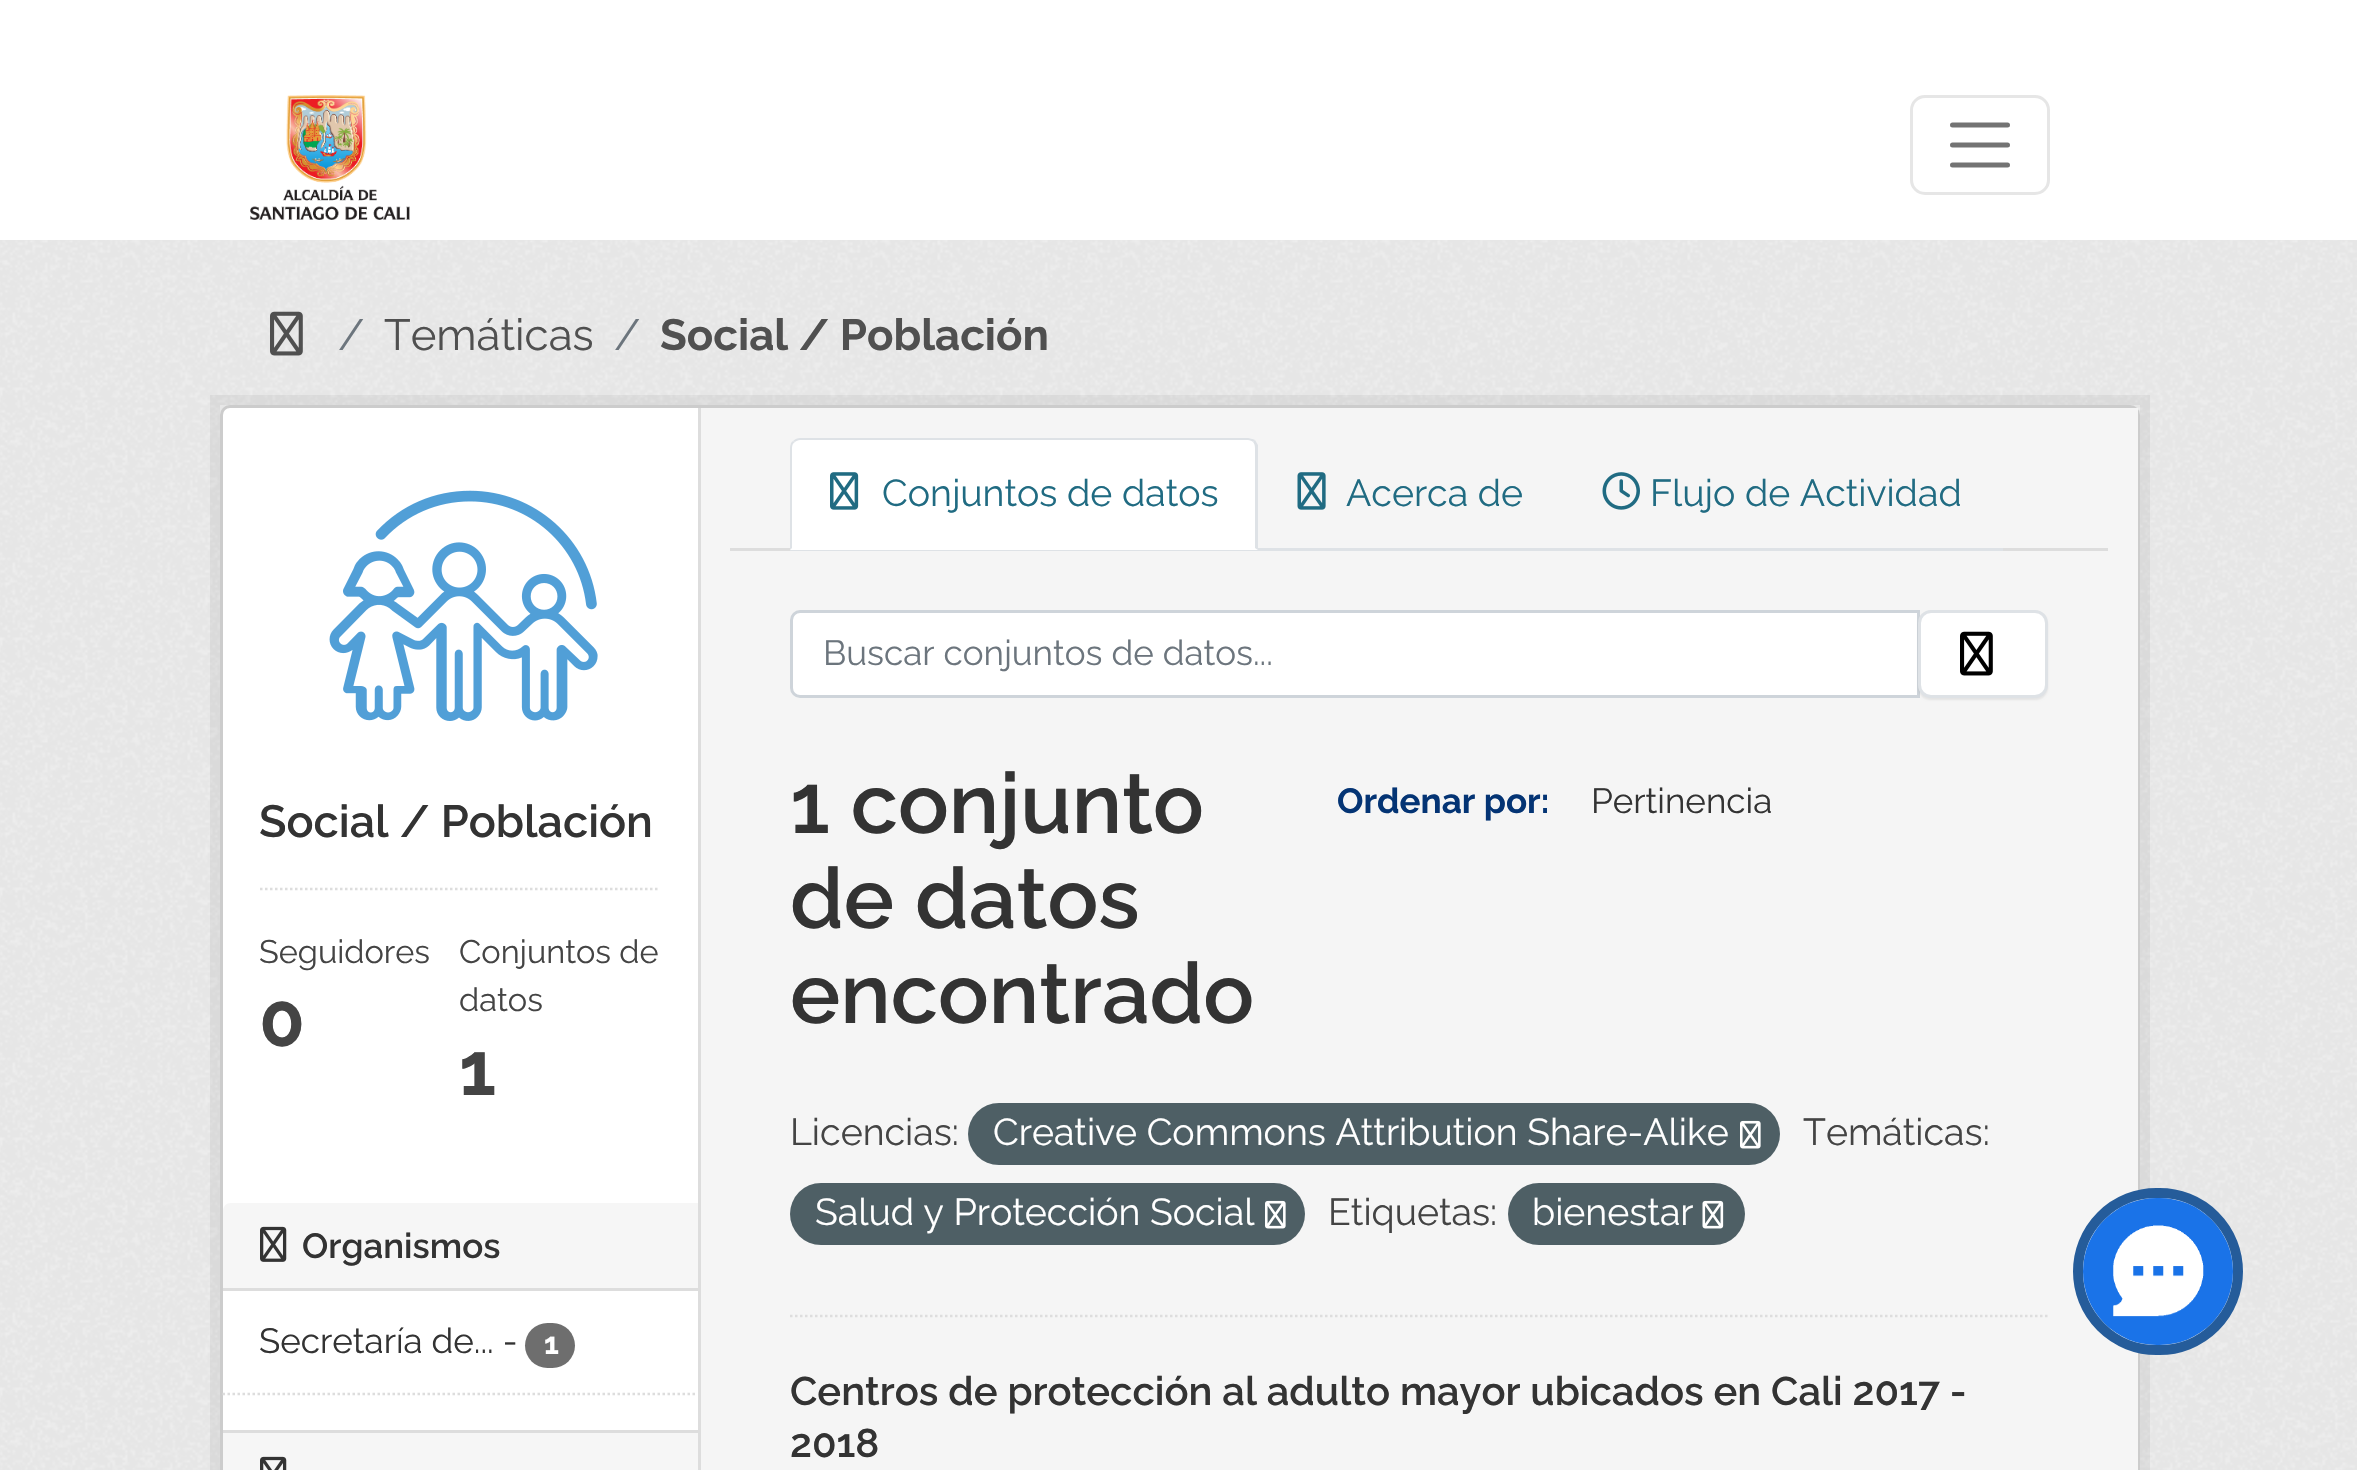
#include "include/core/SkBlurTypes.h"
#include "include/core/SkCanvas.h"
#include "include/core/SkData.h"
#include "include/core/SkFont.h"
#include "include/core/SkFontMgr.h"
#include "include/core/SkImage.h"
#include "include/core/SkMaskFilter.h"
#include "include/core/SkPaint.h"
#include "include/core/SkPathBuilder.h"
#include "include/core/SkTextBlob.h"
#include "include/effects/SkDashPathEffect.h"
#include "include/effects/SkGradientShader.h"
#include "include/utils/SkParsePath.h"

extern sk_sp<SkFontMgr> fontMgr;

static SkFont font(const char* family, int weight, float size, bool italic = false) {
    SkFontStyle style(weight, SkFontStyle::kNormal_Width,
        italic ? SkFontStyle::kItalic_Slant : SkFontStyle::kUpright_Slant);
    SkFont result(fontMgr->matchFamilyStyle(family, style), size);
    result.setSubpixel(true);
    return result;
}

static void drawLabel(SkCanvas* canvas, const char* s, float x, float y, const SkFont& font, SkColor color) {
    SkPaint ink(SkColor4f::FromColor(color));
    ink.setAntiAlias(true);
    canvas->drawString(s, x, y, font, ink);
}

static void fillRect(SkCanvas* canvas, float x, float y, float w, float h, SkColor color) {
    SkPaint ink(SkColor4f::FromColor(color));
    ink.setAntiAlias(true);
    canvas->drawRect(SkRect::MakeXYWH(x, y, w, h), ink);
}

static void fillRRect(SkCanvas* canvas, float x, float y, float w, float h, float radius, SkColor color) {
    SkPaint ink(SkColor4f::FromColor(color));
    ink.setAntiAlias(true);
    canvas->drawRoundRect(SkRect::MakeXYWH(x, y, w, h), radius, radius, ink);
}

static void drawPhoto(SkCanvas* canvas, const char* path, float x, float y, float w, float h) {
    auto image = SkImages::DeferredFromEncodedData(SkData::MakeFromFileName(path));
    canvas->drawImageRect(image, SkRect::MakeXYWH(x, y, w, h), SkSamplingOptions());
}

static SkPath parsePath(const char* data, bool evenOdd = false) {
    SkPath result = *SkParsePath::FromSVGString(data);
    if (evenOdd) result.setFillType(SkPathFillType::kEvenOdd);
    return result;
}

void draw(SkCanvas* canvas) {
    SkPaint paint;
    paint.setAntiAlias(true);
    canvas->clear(0xFFFFFFFF);
    drawPhoto(canvas, "assets/img1.png", 250, 95, 160, 125);
    paint.setStroke(true);
    paint.setStrokeWidth(3);
    paint.setColor(0xFFE6E6E6);
    canvas->drawRoundRect(SkRect::MakeXYWH(1911.5f, 96.5f, 137, 97), 13.5f, 13.5f, paint);
    paint.setStrokeWidth(5);
    paint.setStrokeCap(SkPaint::kRound_Cap);
    paint.setColor(0xFF737373);
    canvas->drawPath(parsePath("M1952.5 125H2007.5M1952.5 145H2007.5M1952.5 165H2007.5"), paint);
    fillRect(canvas, 0, 240, 2357, 1230, 0xFFEEEEEE);
    drawPhoto(canvas, "assets/img2.png", 0, 240, 2357, 1230);
    drawPhoto(canvas, "assets/img3.png", 270, 311, 33, 45);
    SkFont font1 = font("Raleway", 400, 43.75f);
    drawLabel(canvas, "/", 338, 350, font1, 0xFF6C757D);
    drawLabel(canvas, "Temáticas", 384, 350, font1, 0xFF505050);
    drawLabel(canvas, "/", 614, 350, font1, 0xFF6C757D);
    SkFont font2 = font("Raleway", 700, 43.75f);
    drawLabel(canvas, "Social / Población", 660, 350, font2, 0xFF505050);
    paint.setStrokeWidth(10);
    paint.setStrokeCap(SkPaint::kButt_Cap);
    paint.setColor(0x0D000000);
    canvas->drawRect(SkRect::MakeXYWH(215, 400, 1930, 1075), paint);
    paint.setStroke(false);
    paint.setColor(0xFFFFFFFF);
    canvas->drawRoundRect(SkRect::MakeXYWH(221.5f, 406.5f, 1917, 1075), 8.5f, 8.5f, paint);
    paint.setStroke(true);
    paint.setStrokeWidth(3);
    paint.setColor(0xFFCCCCCC);
    canvas->drawRoundRect(SkRect::MakeXYWH(221.5f, 406.5f, 1917, 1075), 8.5f, 8.5f, paint);
    drawPhoto(canvas, "assets/img4.png", 329, 490, 269, 231);
    SkFont font3 = font("Raleway", 600, 45);
    drawLabel(canvas, "Social / Población", 259, 837, font3, 0xFF333333);
    paint.setStrokeWidth(2.5f);
    paint.setColor(0xFFDDDDDD);
    paint.setPathEffect(SkDashPathEffect::Make({{2.5f, 2.5f}}, 0));
    canvas->drawPath(parsePath("M260 889H660"), paint);
    paint.setPathEffect(nullptr);
    SkFont font4 = font("Raleway", 400, 32.5f);
    drawLabel(canvas, "Seguidores", 259, 963, font4, 0xFF444444);
    SkFont font5 = font("Raleway", 700, 75);
    drawLabel(canvas, "0", 259, 1046, font5, 0xFF444444);
    drawLabel(canvas, "Conjuntos de", 459, 963, font4, 0xFF444444);
    drawLabel(canvas, "datos", 459, 1011, font4, 0xFF444444);
    drawLabel(canvas, "1", 459, 1095, font5, 0xFF444444);
    paint.setStroke(false);
    paint.setColor(0xFFF6F6F6);
    canvas->drawPath(parsePath("M231 1203H698V1290H223V1211C223 1206.5 226.5 1203 231 1203Z"), paint);
    fillRect(canvas, 223, 1288, 475, 3, 0xFFDDDDDD);
    drawPhoto(canvas, "assets/img5.png", 260, 1226, 27, 36);
    SkFont font6 = font("Raleway", 600, 35);
    drawLabel(canvas, "Organismos", 302, 1258, font6, 0xFF333333);
    SkFont font7 = font("Raleway", 400, 35);
    drawLabel(canvas, "Secretaría de... -", 259, 1353, font7, 0xFF333333);
    fillRRect(canvas, 525, 1323, 50, 45, 22.5f, 0xFF6E6E6E);
    SkFont font8 = font("Raleway", 700, 30);
    drawLabel(canvas, "1", 544, 1354, font8, 0xFFFFFFFF);
    paint.setStroke(true);
    paint.setColor(0xFFDDDDDD);
    paint.setPathEffect(SkDashPathEffect::Make({{2.5f, 2.5f}}, 0));
    canvas->drawPath(parsePath("M222.5 1394H697.5"), paint);
    paint.setPathEffect(nullptr);
    fillRect(canvas, 223, 1433, 475, 37, 0xFFF6F6F6);
    fillRect(canvas, 223, 1430, 475, 3, 0xFFDDDDDD);
    drawPhoto(canvas, "assets/img6.png", 260, 1456, 27, 14);
    fillRect(canvas, 698, 408, 3, 1062, 0xFFDDDDDD);
    fillRect(canvas, 701, 408, 1437, 1062, 0xFFF5F5F5);
    fillRect(canvas, 730, 548, 1378, 3, 0xFFDDDDDD);
    fillRect(canvas, 790, 548, 1213, 3, 0xFFDEE2E6);
    paint.setStroke(false);
    paint.setColor(0xFFFFFFFF);
    canvas->drawPath(parsePath("M800 438H1248C1253.5 438 1258 442.5 1258 448V550H790V448C790 442.5 794.5 438 800 438Z"), paint);
    paint.setColor(0xFFDEE2E6);
    canvas->drawPath(parsePath("M800 438C797 438 795 439 793 441L795 442C796 441 798 440 800 440H1248C1250 440 1252 441 1253 442L1255 440C1253 439 1250 438 1248 438Z"), paint);
    canvas->drawPath(parsePath("M1255 440C1256 442 1257 443 1258 445V550L1255 548V448C1255 445 1254 443 1253 442Z"), paint);
    canvas->drawPath(parsePath("M790 550L792 548V448C792 445 793 443 795 442L793 441C791 442 790 445 790 448Z"), paint);
    drawPhoto(canvas, "assets/img7.png", 830, 472, 29, 38);
    SkFont font9 = font("Raleway", 400, 37.5f);
    drawLabel(canvas, "Conjuntos de datos", 882, 506, font9, 0xFF206B82);
    drawPhoto(canvas, "assets/img8.png", 1297, 472, 29, 38);
    drawLabel(canvas, "Acerca de", 1346, 506, font9, 0xFF206B82);
    drawPhoto(canvas, "assets/img9.png", 1602, 472, 38, 38);
    drawLabel(canvas, "Flujo de Actividad", 1650, 506, font9, 0xFF206B82);
    paint.setStroke(true);
    paint.setColor(0xFFDDDDDD);
    paint.setPathEffect(SkDashPathEffect::Make({{2.5f, 2.5f}}, 0));
    canvas->drawPath(parsePath("M790 1316H2047.5"), paint);
    paint.setPathEffect(nullptr);
    paint.setStroke(false);
    paint.setColor(0xFFFFFFFF);
    canvas->drawPath(parsePath("M800 611.5H1918.5V696.5H800C795.5 696.5 791.5 692.5 791.5 688V620C791.5 615.5 795.5 611.5 800 611.5Z"), paint);
    paint.setStroke(true);
    paint.setStrokeWidth(3);
    paint.setColor(0xFFCED4DA);
    canvas->drawPath(parsePath("M800 611.5H1918.5V696.5H800C795.5 696.5 791.5 692.5 791.5 688V620C791.5 615.5 795.5 611.5 800 611.5Z"), paint);
    drawLabel(canvas, "Buscar conjuntos de datos...", 823, 665, font7, 0xFF6C757D);
    paint.setStroke(false);
    paint.setColor(0x12000000);
    paint.setMaskFilter(SkMaskFilter::MakeBlur(kNormal_SkBlurStyle, 1));
    canvas->drawRoundRect(SkRect::MakeXYWH(1918, 613, 130, 87), 13, 13, paint);
    paint.setMaskFilter(nullptr);
    paint.setColor(0xFFFFFFFF);
    canvas->drawRoundRect(SkRect::MakeXYWH(1919.5f, 611.5f, 127, 85), 11.5f, 11.5f, paint);
    paint.setStroke(true);
    paint.setColor(0xFFDEE2E6);
    canvas->drawRoundRect(SkRect::MakeXYWH(1919.5f, 611.5f, 127, 85), 11.5f, 11.5f, paint);
    drawPhoto(canvas, "assets/img10.png", 1960, 631, 33, 45);
    SkFont font10 = font("Raleway", 600, 84.5f);
    drawLabel(canvas, "1 conjunto", 790, 833, font10, 0xFF333333);
    drawLabel(canvas, "de datos", 790, 928, font10, 0xFF333333);
    drawLabel(canvas, "encontrado", 790, 1023, font10, 0xFF333333);
    SkFont font11 = font("Raleway", 700, 35);
    drawLabel(canvas, "Ordenar por:", 1337, 813, font11, 0xFF043474);
    drawLabel(canvas, "Pertinencia", 1591, 813, font7, 0xFF333333);
    drawLabel(canvas, "Licencias:", 790, 1145, font9, 0xFF444444);
    fillRRect(canvas, 968, 1103, 812, 62, 31, 0xFF4E5F65);
    drawLabel(canvas, "Creative Commons Attribution Share-Alike", 993, 1145, font9, 0xFFFFFFFF);
    drawPhoto(canvas, "assets/img11.png", 1740, 1120, 21, 29);
    drawLabel(canvas, "Temáticas:", 1803, 1145, font9, 0xFF444444);
    fillRRect(canvas, 790, 1183, 515, 62, 31, 0xFF4E5F65);
    drawLabel(canvas, "Salud y Protección Social", 815, 1225, font9, 0xFFFFFFFF);
    drawPhoto(canvas, "assets/img11.png", 1265, 1200, 21, 29);
    drawLabel(canvas, "Etiquetas:", 1328, 1225, font9, 0xFF444444);
    fillRRect(canvas, 1508, 1183, 237, 62, 31, 0xFF4E5F65);
    drawLabel(canvas, "bienestar", 1532, 1225, font9, 0xFFFFFFFF);
    drawPhoto(canvas, "assets/img12.png", 1702, 1200, 22, 29);
    SkFont font12 = font("Raleway", 600, 40);
    drawLabel(canvas, "Centros de protección al adulto mayor ubicados en Cali 2017 -", 790, 1405, font12, 0xFF333333);
    drawLabel(canvas, "2018", 790, 1457, font12, 0xFF333333);
    paint.setStrokeWidth(10);
    paint.setColor(0xFF255C9A);
    canvas->drawRoundRect(SkRect::MakeXYWH(2078, 1193, 160, 157), 78.5f, 78.5f, paint);
    fillRRect(canvas, 2083, 1198, 150, 147, 73.5f, 0xFF1A73E8);
    drawPhoto(canvas, "assets/img13.png", 2113, 1225, 91, 92);
}
